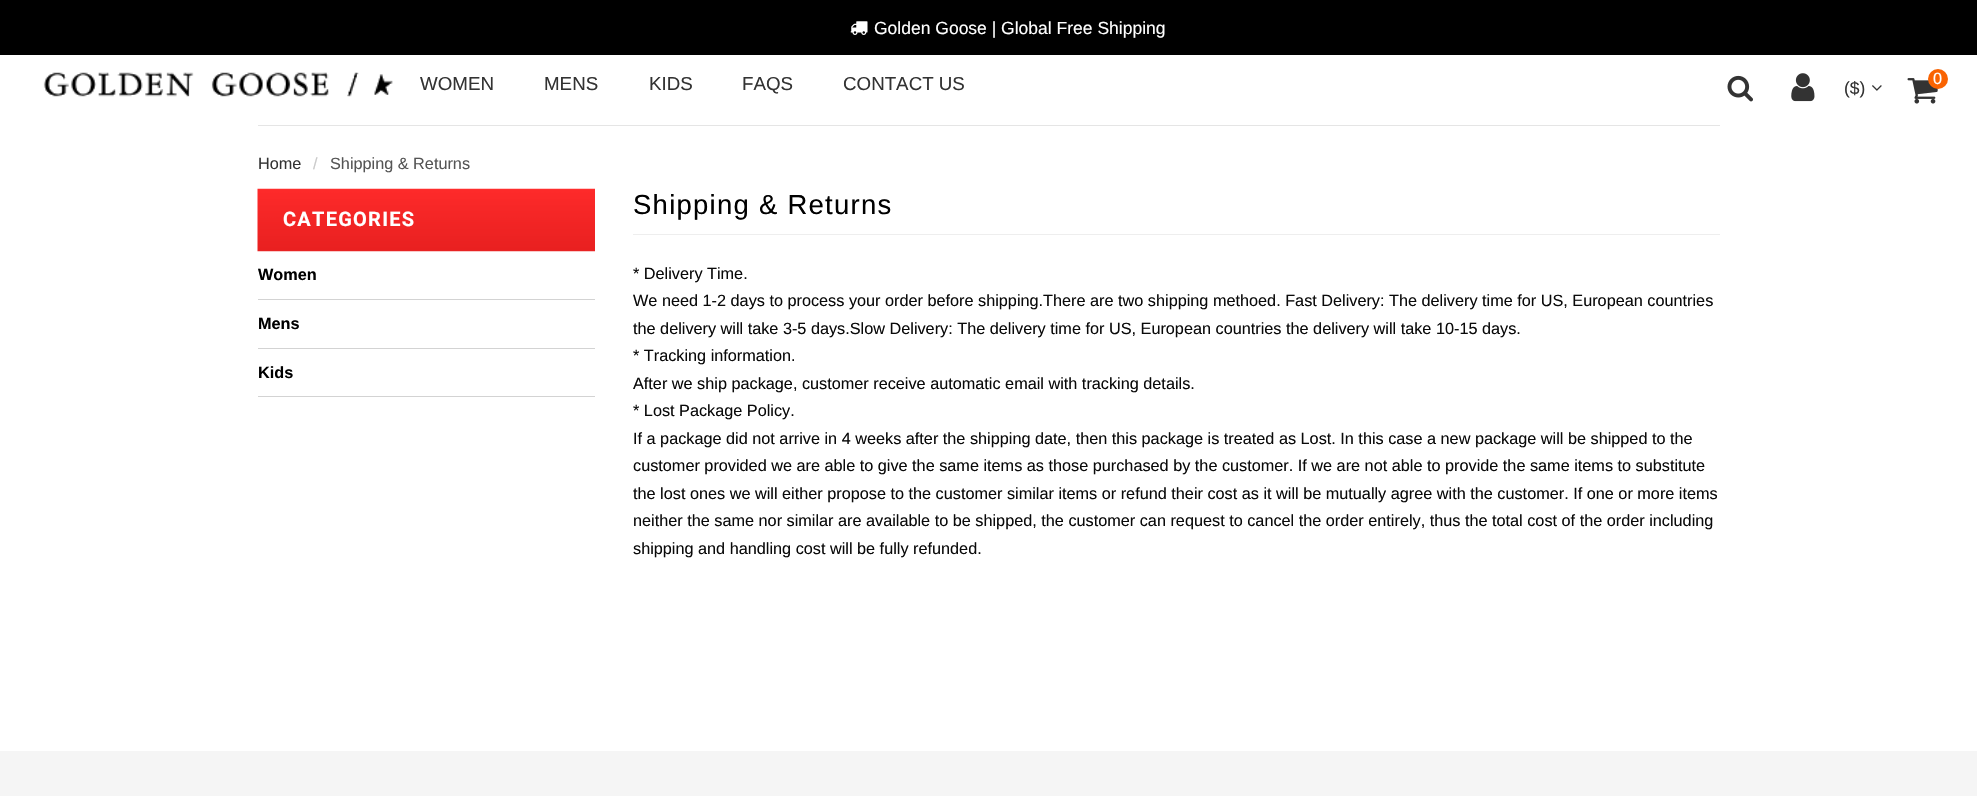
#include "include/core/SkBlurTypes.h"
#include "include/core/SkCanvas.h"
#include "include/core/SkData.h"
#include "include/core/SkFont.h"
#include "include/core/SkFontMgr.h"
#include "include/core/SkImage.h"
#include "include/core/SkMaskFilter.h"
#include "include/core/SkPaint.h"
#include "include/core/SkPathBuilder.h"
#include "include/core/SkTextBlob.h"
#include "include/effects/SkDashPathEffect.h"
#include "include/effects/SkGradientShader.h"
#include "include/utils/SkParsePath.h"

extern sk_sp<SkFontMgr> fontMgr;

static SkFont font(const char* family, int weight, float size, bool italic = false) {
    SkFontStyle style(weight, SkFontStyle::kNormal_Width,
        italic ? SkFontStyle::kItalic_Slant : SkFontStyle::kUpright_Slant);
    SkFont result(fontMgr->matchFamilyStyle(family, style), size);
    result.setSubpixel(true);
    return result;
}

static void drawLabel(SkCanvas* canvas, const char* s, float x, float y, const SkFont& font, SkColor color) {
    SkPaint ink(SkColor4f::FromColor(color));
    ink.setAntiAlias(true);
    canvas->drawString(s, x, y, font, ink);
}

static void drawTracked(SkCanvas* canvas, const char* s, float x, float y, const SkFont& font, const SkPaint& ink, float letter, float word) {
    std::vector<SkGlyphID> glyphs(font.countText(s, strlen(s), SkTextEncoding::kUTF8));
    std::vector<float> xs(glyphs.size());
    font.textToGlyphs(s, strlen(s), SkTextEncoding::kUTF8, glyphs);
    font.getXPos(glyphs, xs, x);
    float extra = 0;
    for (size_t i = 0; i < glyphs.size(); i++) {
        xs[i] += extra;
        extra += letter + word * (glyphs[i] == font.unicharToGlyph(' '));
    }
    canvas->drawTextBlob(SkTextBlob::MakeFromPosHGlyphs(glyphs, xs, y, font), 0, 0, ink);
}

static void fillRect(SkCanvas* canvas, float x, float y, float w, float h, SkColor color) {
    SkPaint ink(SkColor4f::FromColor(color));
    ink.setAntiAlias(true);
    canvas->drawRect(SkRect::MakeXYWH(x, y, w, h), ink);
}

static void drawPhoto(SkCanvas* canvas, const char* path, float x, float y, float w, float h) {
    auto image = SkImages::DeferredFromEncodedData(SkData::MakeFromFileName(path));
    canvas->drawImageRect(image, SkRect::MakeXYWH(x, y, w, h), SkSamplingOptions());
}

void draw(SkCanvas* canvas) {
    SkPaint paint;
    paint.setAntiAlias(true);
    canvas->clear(0xFFFFFFFF);
    fillRect(canvas, 0, 0, 1977, 55, 0xFF000000);
    drawPhoto(canvas, "assets/img1.png", 850, 21, 18, 14);
    SkFont font1 = font("Liberation Sans", 400, 17.5f);
    drawLabel(canvas, "Golden Goose | Global Free Shipping", 874, 34, font1, 0xFFFFFFFF);
    drawPhoto(canvas, "assets/img2.png", 43, 72, 350, 25);
    SkFont font2 = font("Liberation Sans", 400, 18.75f);
    drawLabel(canvas, "WOMEN", 420, 90, font2, 0xFF333333);
    drawLabel(canvas, "MENS", 544, 90, font2, 0xFF333333);
    drawLabel(canvas, "KIDS", 649, 90, font2, 0xFF333333);
    drawLabel(canvas, "FAQS", 742, 90, font2, 0xFF333333);
    drawLabel(canvas, "CONTACT US", 843, 90, font2, 0xFF333333);
    drawPhoto(canvas, "assets/img3.png", 1727, 75, 26, 27);
    drawPhoto(canvas, "assets/img4.png", 1791, 73, 24, 29);
    drawLabel(canvas, "($)", 1844, 94, font1, 0xFF333333);
    drawPhoto(canvas, "assets/img5.png", 1872, 85, 10, 6);
    drawPhoto(canvas, "assets/img6.png", 1907, 78, 31, 26);
    paint.setColor(0xFFF96302);
    canvas->drawCircle(1938, 79, 10, paint);
    SkFont font3 = font("Liberation Sans", 400, 16.25f);
    drawLabel(canvas, "0", 1933, 84, font3, 0xFFFFFFFF);
    fillRect(canvas, 258, 125, 1462, 1, 0xFFE5E5E5);
    drawLabel(canvas, "Home", 258, 169, font3, 0xFF333333);
    drawLabel(canvas, "/", 313, 169, font3, 0xFFCACACA);
    drawLabel(canvas, "Shipping & Returns", 330, 169, font3, 0xFF555555);
    drawPhoto(canvas, "assets/img7.png", 257, 188, 338, 64);
    SkFont font4 = font("Roboto", 700, 20);
    paint.setColor(0xFFFFFFFF);
    drawTracked(canvas, "CATEGORIES", 283, 226, font4, paint, 1.25f, 0);
    fillRect(canvas, 258, 299, 337, 1, 0xFFD3D3D3);
    SkFont font5 = font("Liberation Sans", 700, 16.25f);
    drawLabel(canvas, "Women", 258, 280, font5, 0xFF000000);
    fillRect(canvas, 258, 348, 337, 1, 0xFFD3D3D3);
    drawLabel(canvas, "Mens", 258, 329, font5, 0xFF000000);
    fillRect(canvas, 258, 396, 337, 1, 0xFFD3D3D3);
    drawLabel(canvas, "Kids", 258, 378, font5, 0xFF000000);
    fillRect(canvas, 633, 234, 1087, 1, 0xFFEEEEEE);
    SkFont font6 = font("Liberation Sans", 400, 27.5f);
    paint.setColor(0xFF000000);
    drawTracked(canvas, "Shipping & Returns", 633, 214, font6, paint, 1.25f, 0);
    drawLabel(canvas, "* Delivery Time.", 633, 279, font3, 0xFF0A0A0A);
    drawLabel(canvas, "We need 1-2 days to process your order before shipping.There are two shipping methoed. Fast Delivery: The delivery time for US, European countries", 633, 306, font3, 0xFF0A0A0A);
    drawLabel(canvas, "the delivery will take 3-5 days.Slow Delivery: The delivery time for US, European countries the delivery will take 10-15 days.", 633, 334, font3, 0xFF0A0A0A);
    drawLabel(canvas, "* Tracking information.", 633, 361, font3, 0xFF0A0A0A);
    drawLabel(canvas, "After we ship package, customer receive automatic email with tracking details.", 633, 389, font3, 0xFF0A0A0A);
    drawLabel(canvas, "* Lost Package Policy.", 633, 416, font3, 0xFF0A0A0A);
    drawLabel(canvas, "If a package did not arrive in 4 weeks after the shipping date, then this package is treated as Lost. In this case a new package will be shipped to the", 633, 444, font3, 0xFF0A0A0A);
    drawLabel(canvas, "customer provided we are able to give the same items as those purchased by the customer. If we are not able to provide the same items to substitute", 633, 471, font3, 0xFF0A0A0A);
    drawLabel(canvas, "the lost ones we will either propose to the customer similar items or refund their cost as it will be mutually agree with the customer. If one or more items", 633, 499, font3, 0xFF0A0A0A);
    drawLabel(canvas, "neither the same nor similar are available to be shipped, the customer can request to cancel the order entirely, thus the total cost of the order including", 633, 526, font3, 0xFF0A0A0A);
    drawLabel(canvas, "shipping and handling cost will be fully refunded.", 633, 554, font3, 0xFF0A0A0A);
    fillRect(canvas, 0, 751, 1977, 45, 0xFFF5F5F5);
}
